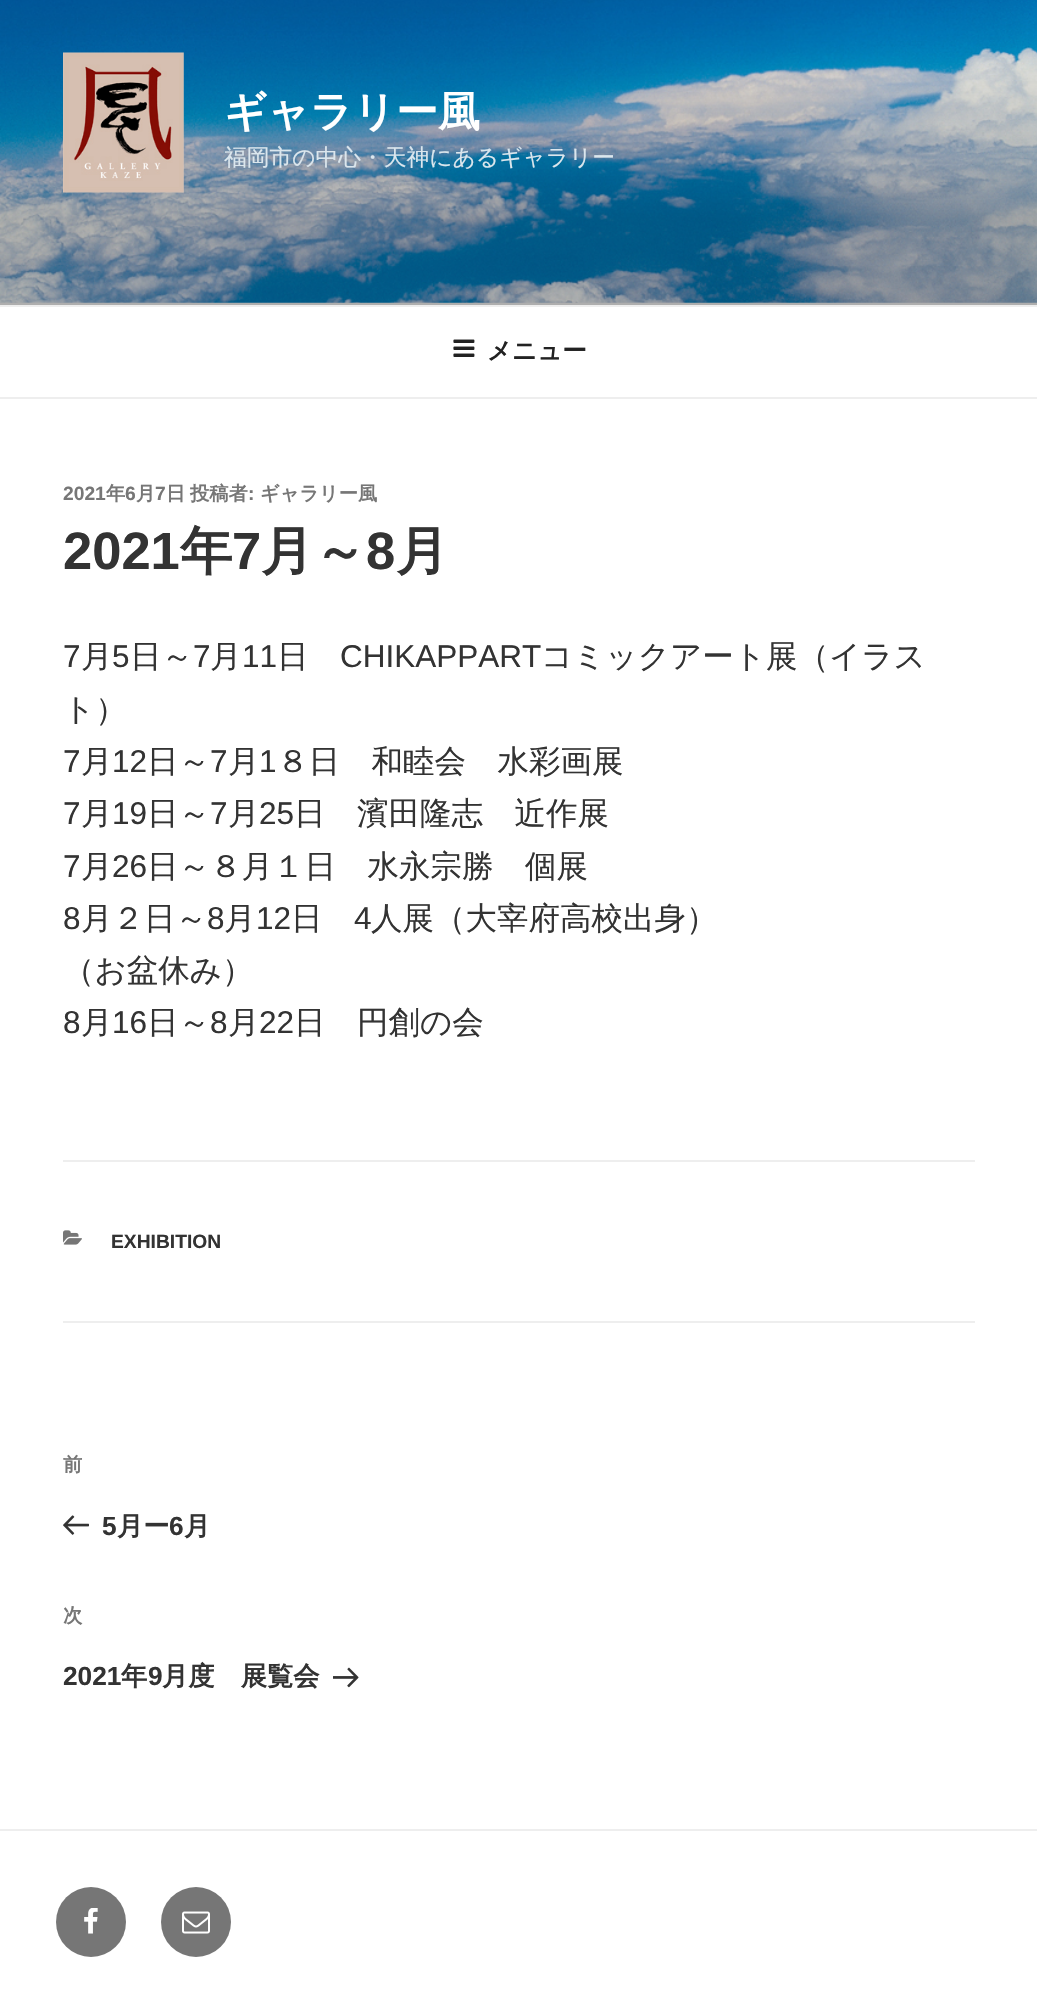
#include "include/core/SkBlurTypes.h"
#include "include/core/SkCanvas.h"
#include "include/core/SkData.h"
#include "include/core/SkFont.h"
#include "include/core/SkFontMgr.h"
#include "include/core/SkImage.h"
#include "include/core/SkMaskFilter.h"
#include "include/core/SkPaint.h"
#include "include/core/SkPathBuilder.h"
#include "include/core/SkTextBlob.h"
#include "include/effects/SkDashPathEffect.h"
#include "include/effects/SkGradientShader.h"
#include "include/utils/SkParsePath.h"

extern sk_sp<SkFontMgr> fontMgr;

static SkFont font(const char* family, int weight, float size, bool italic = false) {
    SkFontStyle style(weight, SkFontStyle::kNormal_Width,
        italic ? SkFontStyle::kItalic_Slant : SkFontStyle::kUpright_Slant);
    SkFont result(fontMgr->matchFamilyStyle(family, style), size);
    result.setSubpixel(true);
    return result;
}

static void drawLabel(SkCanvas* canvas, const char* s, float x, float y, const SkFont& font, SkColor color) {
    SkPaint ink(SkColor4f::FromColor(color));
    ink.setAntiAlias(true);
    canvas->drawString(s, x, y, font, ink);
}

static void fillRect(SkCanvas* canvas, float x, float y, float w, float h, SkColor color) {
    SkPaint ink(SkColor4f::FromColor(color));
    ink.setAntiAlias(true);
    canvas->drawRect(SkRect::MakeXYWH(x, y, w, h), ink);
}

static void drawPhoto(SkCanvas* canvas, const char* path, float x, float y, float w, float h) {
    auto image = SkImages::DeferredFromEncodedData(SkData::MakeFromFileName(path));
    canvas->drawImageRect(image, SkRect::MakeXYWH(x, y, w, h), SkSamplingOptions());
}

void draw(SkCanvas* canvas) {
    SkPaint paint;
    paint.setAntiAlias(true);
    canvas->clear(0xFFFFFFFF);
    fillRect(canvas, 0, 302, 1037, 3, 0xFFFAFAFA);
    drawPhoto(canvas, "assets/img1.png", 0, 0, 1037, 303);
    {
        const SkColor colors[] = {0x00000000, 0x4D000000, 0x4D000000};
        const float stops[] = {0, 0.75f, 1};
        const SkPoint ends[] = {{519, -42}, {519, 305}};
        paint.setShader(SkGradientShader::MakeLinear(ends, colors, stops, 3, SkTileMode::kClamp));
        paint.setAlpha(255);
    }
    canvas->drawRect(SkRect::MakeXYWH(0, 0, 1037, 305), paint);
    drawPhoto(canvas, "assets/img2.png", 63, 52, 121, 141);
    SkFont font1 = font("WenQuanYi Zen Hei", 700, 42);
    drawLabel(canvas, "ギャラリー風", 224, 126, font1, 0xFFFFFFFF);
    SkFont font2 = font("WenQuanYi Zen Hei", 500, 22.75f);
    drawLabel(canvas, "福岡市の中心・天神にあるギャラリー", 224, 165, font2, 0xFFDBE6ED);
    fillRect(canvas, 0, 305, 1037, 2, 0xFFEEEEEE);
    fillRect(canvas, 0, 397, 1037, 2, 0xFFEEEEEE);
    drawPhoto(canvas, "assets/img3.png", 453, 339, 22, 18);
    SkFont font3 = font("WenQuanYi Zen Hei", 700, 24.5f);
    drawLabel(canvas, "メニュー", 487, 359, font3, 0xFF222222);
    SkFont font4 = font("Liberation Sans", 700, 19.25f);
    drawLabel(canvas, "2021", 63, 500, font4, 0xFF767676);
    SkFont font5 = font("WenQuanYi Zen Hei", 700, 19.25f);
    drawLabel(canvas, "年", 106, 500, font5, 0xFF767676);
    drawLabel(canvas, "6", 125, 500, font4, 0xFF767676);
    drawLabel(canvas, "月", 136, 500, font5, 0xFF767676);
    drawLabel(canvas, "7", 155, 500, font4, 0xFF767676);
    drawLabel(canvas, "日", 166, 500, font5, 0xFF767676);
    drawLabel(canvas, "投稿者", 190, 500, font5, 0xFF767676);
    drawLabel(canvas, ":", 248, 500, font4, 0xFF767676);
    drawLabel(canvas, "ギャラリー風", 260, 500, font5, 0xFF767676);
    SkFont font6 = font("Liberation Sans", 700, 52.5f);
    drawLabel(canvas, "2021", 63, 569, font6, 0xFF333333);
    SkFont font7 = font("WenQuanYi Zen Hei", 700, 52.5f);
    drawLabel(canvas, "年", 180, 569, font7, 0xFF333333);
    drawLabel(canvas, "7", 232, 569, font6, 0xFF333333);
    drawLabel(canvas, "月～", 261, 569, font7, 0xFF333333);
    drawLabel(canvas, "8", 366, 569, font6, 0xFF333333);
    drawLabel(canvas, "月", 396, 569, font7, 0xFF333333);
    SkFont font8 = font("Liberation Sans", 400, 31.5f);
    drawLabel(canvas, "7", 63, 667, font8, 0xFF333333);
    SkFont font9 = font("WenQuanYi Zen Hei", 500, 31.5f);
    drawLabel(canvas, "月", 81, 667, font9, 0xFF333333);
    drawLabel(canvas, "5", 112, 667, font8, 0xFF333333);
    drawLabel(canvas, "日～", 130, 667, font9, 0xFF333333);
    drawLabel(canvas, "7", 193, 667, font8, 0xFF333333);
    drawLabel(canvas, "月", 210, 667, font9, 0xFF333333);
    drawLabel(canvas, "11", 242, 667, font8, 0xFF333333);
    drawLabel(canvas, "日", 277, 667, font9, 0xFF333333);
    drawLabel(canvas, "CHIKAPPART", 340, 667, font8, 0xFF333333);
    drawLabel(canvas, "コミックアート展（イラス", 541, 667, font9, 0xFF333333);
    drawLabel(canvas, "ト）", 63, 720, font9, 0xFF333333);
    drawLabel(canvas, "7", 63, 772, font8, 0xFF333333);
    drawLabel(canvas, "月", 81, 772, font9, 0xFF333333);
    drawLabel(canvas, "12", 112, 772, font8, 0xFF333333);
    drawLabel(canvas, "日～", 147, 772, font9, 0xFF333333);
    drawLabel(canvas, "7", 210, 772, font8, 0xFF333333);
    drawLabel(canvas, "月", 228, 772, font9, 0xFF333333);
    drawLabel(canvas, "1", 259, 772, font8, 0xFF333333);
    drawLabel(canvas, "８日　和睦会　水彩画展", 277, 772, font9, 0xFF333333);
    drawLabel(canvas, "7", 63, 824, font8, 0xFF333333);
    drawLabel(canvas, "月", 81, 824, font9, 0xFF333333);
    drawLabel(canvas, "19", 112, 824, font8, 0xFF333333);
    drawLabel(canvas, "日～", 147, 824, font9, 0xFF333333);
    drawLabel(canvas, "7", 210, 824, font8, 0xFF333333);
    drawLabel(canvas, "月", 228, 824, font9, 0xFF333333);
    drawLabel(canvas, "25", 259, 824, font8, 0xFF333333);
    drawLabel(canvas, "日　濱田隆志　近作展", 294, 824, font9, 0xFF333333);
    drawLabel(canvas, "7", 63, 877, font8, 0xFF333333);
    drawLabel(canvas, "月", 81, 877, font9, 0xFF333333);
    drawLabel(canvas, "26", 112, 877, font8, 0xFF333333);
    drawLabel(canvas, "日～８月１日　水永宗勝　個展", 147, 877, font9, 0xFF333333);
    drawLabel(canvas, "8", 63, 929, font8, 0xFF333333);
    drawLabel(canvas, "月２日～", 81, 929, font9, 0xFF333333);
    drawLabel(canvas, "8", 207, 929, font8, 0xFF333333);
    drawLabel(canvas, "月", 224, 929, font9, 0xFF333333);
    drawLabel(canvas, "12", 256, 929, font8, 0xFF333333);
    drawLabel(canvas, "日", 291, 929, font9, 0xFF333333);
    drawLabel(canvas, "4", 354, 929, font8, 0xFF333333);
    drawLabel(canvas, "人展（大宰府高校出身）", 371, 929, font9, 0xFF333333);
    drawLabel(canvas, "（お盆休み）", 63, 981, font9, 0xFF333333);
    drawLabel(canvas, "8", 63, 1033, font8, 0xFF333333);
    drawLabel(canvas, "月", 81, 1033, font9, 0xFF333333);
    drawLabel(canvas, "16", 112, 1033, font8, 0xFF333333);
    drawLabel(canvas, "日～", 147, 1033, font9, 0xFF333333);
    drawLabel(canvas, "8", 210, 1033, font8, 0xFF333333);
    drawLabel(canvas, "月", 228, 1033, font9, 0xFF333333);
    drawLabel(canvas, "22", 259, 1033, font8, 0xFF333333);
    drawLabel(canvas, "日　円創の会", 294, 1033, font9, 0xFF333333);
    fillRect(canvas, 63, 1160, 912, 2, 0xFFEEEEEE);
    fillRect(canvas, 63, 1321, 912, 2, 0xFFEEEEEE);
    drawPhoto(canvas, "assets/img4.png", 63, 1230, 19, 15);
    drawLabel(canvas, "EXHIBITION", 111, 1248, font4, 0xFF333333);
    drawLabel(canvas, "前", 63, 1471, font5, 0xFF767676);
    drawPhoto(canvas, "assets/img5.png", 63, 1515, 26, 20);
    SkFont font10 = font("Liberation Sans", 700, 26.25f);
    drawLabel(canvas, "5", 102, 1535, font10, 0xFF333333);
    SkFont font11 = font("WenQuanYi Zen Hei", 700, 26.25f);
    drawLabel(canvas, "月ー", 117, 1535, font11, 0xFF333333);
    drawLabel(canvas, "6", 169, 1535, font10, 0xFF333333);
    drawLabel(canvas, "月", 184, 1535, font11, 0xFF333333);
    drawLabel(canvas, "次", 63, 1622, font5, 0xFF767676);
    drawLabel(canvas, "2021", 63, 1685, font10, 0xFF333333);
    drawLabel(canvas, "年", 121, 1685, font11, 0xFF333333);
    drawLabel(canvas, "9", 148, 1685, font10, 0xFF333333);
    drawLabel(canvas, "月度　展覧会", 162, 1685, font11, 0xFF333333);
    drawPhoto(canvas, "assets/img6.png", 333, 1667, 26, 21);
    fillRect(canvas, 0, 1829, 1037, 2, 0xFFEEEEEE);
    paint.setShader(nullptr);
    paint.setColor(0xFF767676);
    canvas->drawCircle(91, 1922, 35, paint);
    drawPhoto(canvas, "assets/img7.png", 84, 1908, 14, 26);
    canvas->drawCircle(196, 1922, 35, paint);
    drawPhoto(canvas, "assets/img8.png", 182, 1911, 28, 23);
}
